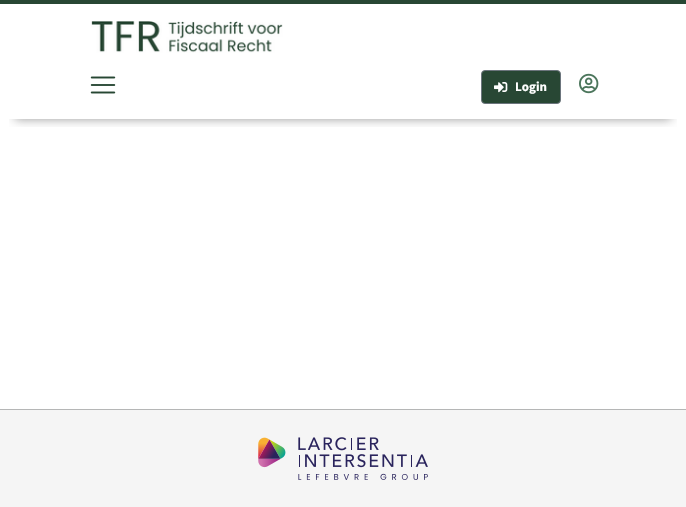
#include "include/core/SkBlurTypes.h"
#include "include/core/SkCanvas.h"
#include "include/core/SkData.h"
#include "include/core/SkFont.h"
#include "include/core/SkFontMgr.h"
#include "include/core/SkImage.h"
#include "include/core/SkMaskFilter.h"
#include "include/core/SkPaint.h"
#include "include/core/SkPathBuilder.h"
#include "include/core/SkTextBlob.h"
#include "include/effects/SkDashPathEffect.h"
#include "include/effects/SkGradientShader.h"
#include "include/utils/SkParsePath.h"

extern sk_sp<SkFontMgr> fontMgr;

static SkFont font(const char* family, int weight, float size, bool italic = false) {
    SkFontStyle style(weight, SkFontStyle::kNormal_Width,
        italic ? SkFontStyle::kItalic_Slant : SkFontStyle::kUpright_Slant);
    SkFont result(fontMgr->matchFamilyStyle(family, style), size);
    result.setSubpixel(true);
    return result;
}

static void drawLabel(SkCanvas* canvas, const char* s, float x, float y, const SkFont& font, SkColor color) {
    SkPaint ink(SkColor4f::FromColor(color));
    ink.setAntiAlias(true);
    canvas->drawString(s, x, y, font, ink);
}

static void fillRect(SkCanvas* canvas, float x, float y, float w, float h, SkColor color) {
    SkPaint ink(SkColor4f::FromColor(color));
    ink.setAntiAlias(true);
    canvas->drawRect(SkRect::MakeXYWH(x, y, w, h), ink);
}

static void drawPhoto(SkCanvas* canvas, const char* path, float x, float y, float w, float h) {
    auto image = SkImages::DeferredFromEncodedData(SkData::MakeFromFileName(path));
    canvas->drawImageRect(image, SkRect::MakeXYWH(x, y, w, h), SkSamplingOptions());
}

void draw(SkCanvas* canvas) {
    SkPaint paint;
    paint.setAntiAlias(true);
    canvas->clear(0xFFFFFFFF);
    canvas->save();
    canvas->clipRect(SkRect::MakeXYWH(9, 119, 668, 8));
    paint.setColor(0x66000000);
    paint.setMaskFilter(SkMaskFilter::MakeBlur(kNormal_SkBlurStyle, 5));
    canvas->drawRect(SkRect::MakeXYWH(15, 30, 656, 89), paint);
    paint.setMaskFilter(nullptr);
    canvas->restore();
    fillRect(canvas, 0, 0, 686, 4, 0xFF284734);
    drawPhoto(canvas, "assets/img1.png", 91, 21, 192, 32);
    drawPhoto(canvas, "assets/img2.png", 90, 76, 26, 18);
    paint.setColor(0xFF284734);
    canvas->drawRoundRect(SkRect::MakeXYWH(481.5f, 70.5f, 79, 33), 3.5f, 3.5f, paint);
    paint.setStroke(true);
    paint.setStrokeWidth(1);
    paint.setColor(0xFF6C757D);
    canvas->drawRoundRect(SkRect::MakeXYWH(481.5f, 70.5f, 79, 33), 3.5f, 3.5f, paint);
    drawPhoto(canvas, "assets/img3.png", 494, 82, 14, 11);
    SkFont font1 = font("Source Sans 3", 700, 13);
    drawLabel(canvas, "Login", 515, 91, font1, 0xFFFFFFFF);
    drawPhoto(canvas, "assets/img4.png", 579, 73, 20, 21);
    fillRect(canvas, 0, 410, 686, 97, 0xFFF5F5F5);
    fillRect(canvas, 0, 409, 686, 1, 0xFFB5B6B6);
    drawPhoto(canvas, "assets/img5.png", 258, 437, 170, 43);
}
